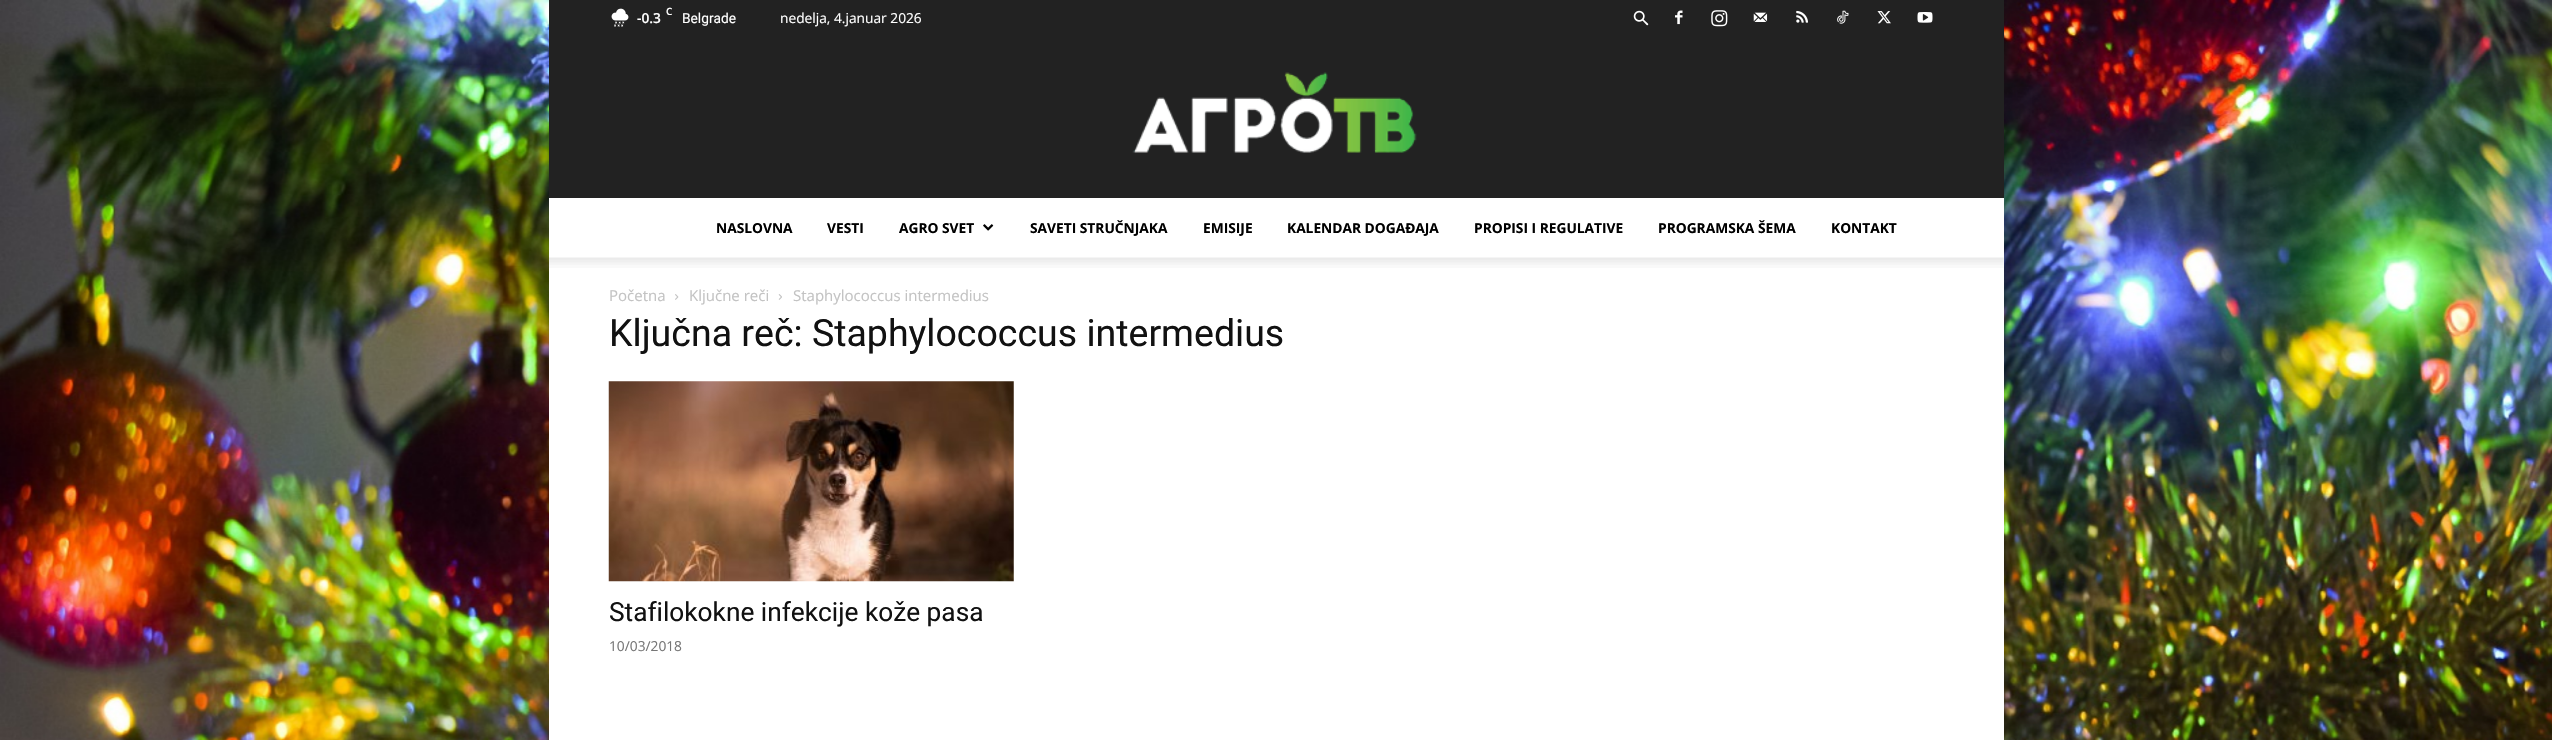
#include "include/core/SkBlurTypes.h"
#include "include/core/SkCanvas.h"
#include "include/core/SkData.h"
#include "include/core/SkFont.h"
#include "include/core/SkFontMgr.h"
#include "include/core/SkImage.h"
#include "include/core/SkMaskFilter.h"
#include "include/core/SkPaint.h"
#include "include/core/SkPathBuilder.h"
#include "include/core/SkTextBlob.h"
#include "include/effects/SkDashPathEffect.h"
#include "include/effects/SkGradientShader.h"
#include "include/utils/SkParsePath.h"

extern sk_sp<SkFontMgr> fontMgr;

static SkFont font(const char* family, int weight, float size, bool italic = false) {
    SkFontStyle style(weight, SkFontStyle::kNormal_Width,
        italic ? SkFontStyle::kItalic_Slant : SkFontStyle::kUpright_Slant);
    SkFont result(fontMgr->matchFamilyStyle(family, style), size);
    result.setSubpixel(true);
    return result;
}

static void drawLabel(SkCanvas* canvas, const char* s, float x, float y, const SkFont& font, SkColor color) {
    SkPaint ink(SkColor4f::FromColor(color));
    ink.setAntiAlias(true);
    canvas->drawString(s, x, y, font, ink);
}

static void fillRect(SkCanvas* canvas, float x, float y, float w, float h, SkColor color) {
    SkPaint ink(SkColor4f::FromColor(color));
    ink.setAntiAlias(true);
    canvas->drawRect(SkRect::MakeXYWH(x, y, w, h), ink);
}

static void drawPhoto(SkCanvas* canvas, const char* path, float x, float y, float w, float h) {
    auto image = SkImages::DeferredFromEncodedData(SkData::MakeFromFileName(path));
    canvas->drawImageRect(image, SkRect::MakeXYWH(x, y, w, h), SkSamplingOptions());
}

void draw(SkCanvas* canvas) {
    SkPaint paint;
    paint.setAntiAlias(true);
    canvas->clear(0xFFFFFFFF);
    drawPhoto(canvas, "assets/img1.png", 0, 0, 2552, 740);
    fillRect(canvas, 549, 0, 1455, 198, 0xFF222222);
    drawPhoto(canvas, "assets/img2.png", 1132, 72, 285, 81);
    drawPhoto(canvas, "assets/img3.png", 611, 8, 18, 19);
    SkFont font1 = font("Open Sans", 600, 10);
    drawLabel(canvas, "C", 666, 15, font1, 0xFFFFFFFF);
    SkFont font2 = font("Open Sans", 600, 13.75f);
    drawLabel(canvas, "-0.3", 637, 23, font2, 0xFFFFFFFF);
    SkFont font3 = font("Roboto", 400, 13.75f);
    drawLabel(canvas, "Belgrade", 682, 23, font3, 0xFFFFFFFF);
    SkFont font4 = font("Open Sans", 400, 13.75f);
    drawLabel(canvas, "nedelja, 4.januar 2026", 780, 23, font4, 0xFFFFFFFF);
    drawPhoto(canvas, "assets/img4.png", 1633, 10, 16, 16);
    drawPhoto(canvas, "assets/img5.png", 1675, 10, 8, 15);
    drawPhoto(canvas, "assets/img6.png", 1711, 10, 17, 17);
    drawPhoto(canvas, "assets/img7.png", 1753, 12, 15, 10);
    drawPhoto(canvas, "assets/img8.png", 1796, 10, 12, 13);
    drawPhoto(canvas, "assets/img9.png", 1837, 10, 12, 14);
    drawPhoto(canvas, "assets/img10.png", 1877, 11, 14, 13);
    drawPhoto(canvas, "assets/img11.png", 1917, 12, 16, 11);
    fillRect(canvas, 549, 198, 1455, 542, 0xFFFFFFFF);
    SkFont font5 = font("Open Sans", 700, 13.75f);
    drawLabel(canvas, "NASLOVNA", 716, 233, font5, 0xFF000000);
    drawLabel(canvas, "VESTI", 827, 233, font5, 0xFF000000);
    drawLabel(canvas, "AGRO SVET", 899, 233, font5, 0xFF000000);
    drawPhoto(canvas, "assets/img12.png", 983, 224, 11, 7);
    drawLabel(canvas, "SAVETI STRUČNJAKA", 1030, 233, font5, 0xFF000000);
    drawLabel(canvas, "EMISIJE", 1203, 233, font5, 0xFF000000);
    drawLabel(canvas, "KALENDAR DOGAĐAJA", 1287, 233, font5, 0xFF000000);
    drawLabel(canvas, "PROPISI I REGULATIVE", 1474, 233, font5, 0xFF000000);
    drawLabel(canvas, "PROGRAMSKA ŠEMA", 1658, 233, font5, 0xFF000000);
    drawLabel(canvas, "KONTAKT", 1831, 233, font5, 0xFF000000);
    drawPhoto(canvas, "assets/img13.png", 549, 257, 1455, 11);
    SkFont font6 = font("Open Sans", 400, 15);
    drawLabel(canvas, "Početna", 609, 301, font6, 0xFFC3C3C3);
    drawPhoto(canvas, "assets/img14.png", 675, 294, 4, 6);
    drawLabel(canvas, "Ključne reči", 689, 301, font6, 0xFFC3C3C3);
    drawPhoto(canvas, "assets/img15.png", 778, 294, 4, 6);
    drawLabel(canvas, "Staphylococcus intermedius", 793, 301, font6, 0xFFC3C3C3);
    SkFont font7 = font("Roboto", 400, 37.5f);
    drawLabel(canvas, "Ključna reč: Staphylococcus intermedius", 609, 346, font7, 0xFF111111);
    drawPhoto(canvas, "assets/img16.png", 608, 381, 406, 201);
    SkFont font8 = font("Roboto", 400, 26.25f);
    drawLabel(canvas, "Stafilokokne infekcije kože pasa", 609, 621, font8, 0xFF111111);
    drawLabel(canvas, "10/03/2018", 609, 651, font4, 0xFF767676);
}
